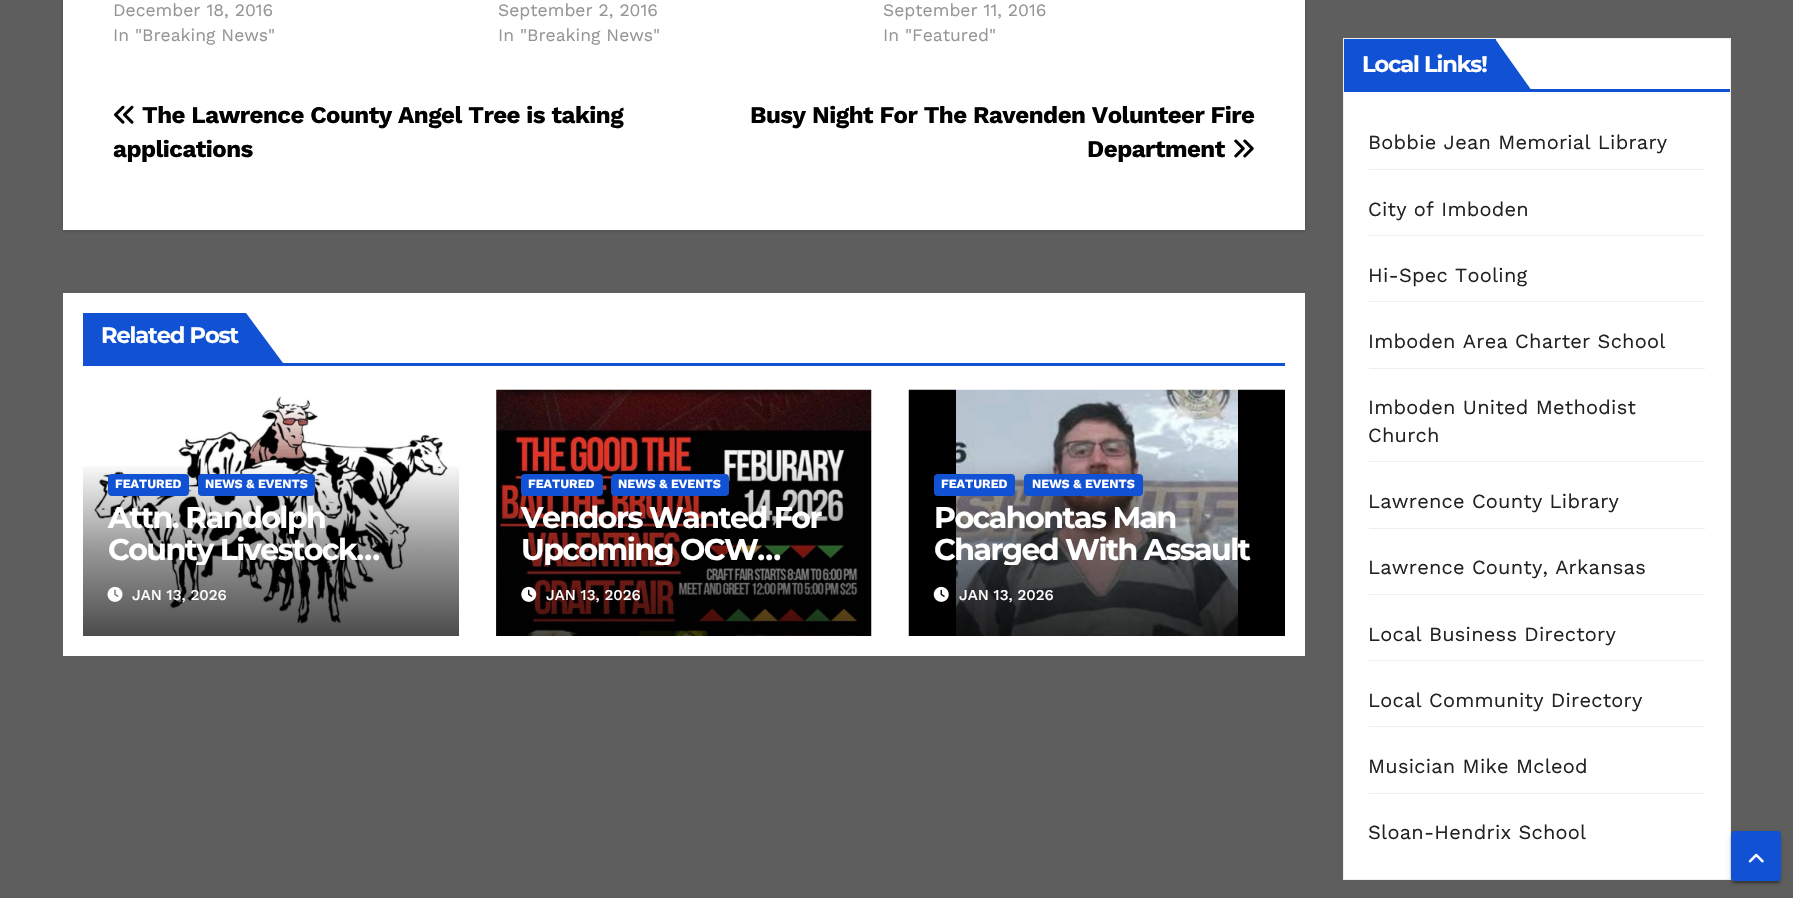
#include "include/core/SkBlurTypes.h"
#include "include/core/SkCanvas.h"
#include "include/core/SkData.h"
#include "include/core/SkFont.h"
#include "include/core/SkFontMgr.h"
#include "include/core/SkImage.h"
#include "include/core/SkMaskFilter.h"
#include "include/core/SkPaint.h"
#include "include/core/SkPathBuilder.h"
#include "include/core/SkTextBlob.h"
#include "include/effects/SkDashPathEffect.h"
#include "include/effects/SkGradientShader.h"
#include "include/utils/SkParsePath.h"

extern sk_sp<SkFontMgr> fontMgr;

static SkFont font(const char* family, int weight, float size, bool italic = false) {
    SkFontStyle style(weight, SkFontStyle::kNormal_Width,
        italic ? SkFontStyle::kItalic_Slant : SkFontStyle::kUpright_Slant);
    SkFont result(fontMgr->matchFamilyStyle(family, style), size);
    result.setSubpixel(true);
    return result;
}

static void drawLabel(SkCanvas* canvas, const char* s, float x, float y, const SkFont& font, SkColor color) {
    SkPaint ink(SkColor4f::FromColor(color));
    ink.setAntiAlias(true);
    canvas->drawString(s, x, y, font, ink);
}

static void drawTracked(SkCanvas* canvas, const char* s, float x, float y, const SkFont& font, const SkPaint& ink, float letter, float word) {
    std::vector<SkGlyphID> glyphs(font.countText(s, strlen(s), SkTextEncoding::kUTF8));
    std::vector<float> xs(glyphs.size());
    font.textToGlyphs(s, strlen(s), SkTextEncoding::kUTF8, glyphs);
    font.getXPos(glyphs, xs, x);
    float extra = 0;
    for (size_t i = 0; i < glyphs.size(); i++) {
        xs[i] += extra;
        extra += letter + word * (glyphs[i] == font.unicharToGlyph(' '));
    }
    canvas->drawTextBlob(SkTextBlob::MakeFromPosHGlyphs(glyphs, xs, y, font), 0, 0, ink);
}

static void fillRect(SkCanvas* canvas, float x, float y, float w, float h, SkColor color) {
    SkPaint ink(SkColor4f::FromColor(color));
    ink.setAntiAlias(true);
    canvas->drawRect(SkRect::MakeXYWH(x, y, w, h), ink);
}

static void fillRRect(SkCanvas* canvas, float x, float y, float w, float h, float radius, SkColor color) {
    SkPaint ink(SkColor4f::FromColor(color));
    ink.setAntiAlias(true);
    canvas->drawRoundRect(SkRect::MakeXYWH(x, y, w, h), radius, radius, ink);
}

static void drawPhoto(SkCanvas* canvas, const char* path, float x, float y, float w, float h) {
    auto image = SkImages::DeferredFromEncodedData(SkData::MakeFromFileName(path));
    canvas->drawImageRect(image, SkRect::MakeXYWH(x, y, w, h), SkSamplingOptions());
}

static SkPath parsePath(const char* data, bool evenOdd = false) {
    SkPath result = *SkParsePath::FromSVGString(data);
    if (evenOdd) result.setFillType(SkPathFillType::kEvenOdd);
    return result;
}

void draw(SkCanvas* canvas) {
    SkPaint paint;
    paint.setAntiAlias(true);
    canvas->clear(0xFF5E5E5E);
    paint.setColor(0x26000000);
    paint.setMaskFilter(SkMaskFilter::MakeBlur(kNormal_SkBlurStyle, 2));
    canvas->drawRect(SkRect::MakeXYWH(63, -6, 1242, 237), paint);
    paint.setMaskFilter(nullptr);
    fillRect(canvas, 63, 0, 1242, 230, 0xFFFFFFFF);
    SkFont font1 = font("Work Sans", 400, 17.5f);
    drawLabel(canvas, "December 18, 2016", 113, 16, font1, 0xFF959595);
    drawLabel(canvas, "In \"Breaking News\"", 113, 41, font1, 0xFF959595);
    drawLabel(canvas, "September 2, 2016", 498, 16, font1, 0xFF959595);
    drawLabel(canvas, "In \"Breaking News\"", 498, 41, font1, 0xFF959595);
    drawLabel(canvas, "September 11, 2016", 883, 16, font1, 0xFF959595);
    drawLabel(canvas, "In \"Featured\"", 883, 41, font1, 0xFF959595);
    drawPhoto(canvas, "assets/img1.png", 114, 105, 20, 19);
    SkFont font2 = font("Work Sans", 700, 24);
    paint.setColor(0xFF000000);
    drawTracked(canvas, "The Lawrence County Angel Tree is taking", 142, 123, font2, paint, -0.5f, 0);
    drawTracked(canvas, "applications", 113, 157, font2, paint, -0.5f, 0);
    drawTracked(canvas, "Busy Night For The Ravenden Volunteer Fire", 750, 123, font2, paint, -0.5f, 0);
    drawTracked(canvas, "Department", 1087, 157, font2, paint, -0.5f, 0);
    drawPhoto(canvas, "assets/img2.png", 1234, 139, 20, 19);
    fillRect(canvas, 63, 293, 1242, 363, 0xFFFFFFFF);
    fillRect(canvas, 83, 363, 1202, 3, 0xFF1151D3);
    fillRect(canvas, 83, 313, 163, 50, 0xFF1151D3);
    SkFont font3 = font("Montserrat", 700, 22.5f);
    paint.setColor(0xFFFFFFFF);
    drawTracked(canvas, "Related Post", 101, 343, font3, paint, -1.1f, 0);
    paint.setColor(0xFF1151D3);
    canvas->drawPath(parsePath("M246 313V363H283Z"), paint);
    drawPhoto(canvas, "assets/img3.png", 83, 390, 376, 246);
    {
        const SkColor colors[] = {0x00000000, 0x66000000, 0xB3000000};
        const float stops[] = {0, 0.5f, 1};
        const SkPoint ends[] = {{271, 461}, {271, 636}};
        paint.setShader(SkGradientShader::MakeLinear(ends, colors, stops, 3, SkTileMode::kClamp));
        paint.setAlpha(255);
    }
    canvas->drawRect(SkRect::MakeXYWH(83, 466, 376, 170), paint);
    fillRRect(canvas, 108, 474, 81, 22, 4, 0xFF1151D3);
    SkFont font4 = font("Work Sans", 700, 12.5f);
    drawLabel(canvas, "FEATURED", 115, 488, font4, 0xFFFFFFFF);
    fillRRect(canvas, 198, 474, 117, 22, 4, 0xFF1151D3);
    drawLabel(canvas, "NEWS & EVENTS", 205, 488, font4, 0xFFFFFFFF);
    SkFont font5 = font("Montserrat", 700, 30);
    paint.setShader(nullptr);
    paint.setColor(0xFFFFFFFF);
    drawTracked(canvas, "Attn. Randolph", 108, 528, font5, paint, -1.5f, 0);
    canvas->save();
    canvas->clipRect(SkRect::MakeXYWH(108, 503, 326, 62));
    drawTracked(canvas, "County Livestock…", 108, 560, font5, paint, -1.5f, 0);
    canvas->restore();
    drawPhoto(canvas, "assets/img4.png", 107, 586, 16, 16);
    SkFont font6 = font("Work Sans", 500, 15);
    drawLabel(canvas, "JAN 13, 2026", 132, 600, font6, 0xFFFFFFFF);
    drawPhoto(canvas, "assets/img5.png", 496, 389, 376, 247);
    {
        const SkColor colors[] = {0x00000000, 0x66000000, 0xB3000000};
        const float stops[] = {0, 0.5f, 1};
        const SkPoint ends[] = {{684, 461}, {684, 636}};
        paint.setShader(SkGradientShader::MakeLinear(ends, colors, stops, 3, SkTileMode::kClamp));
        paint.setAlpha(255);
    }
    canvas->drawRect(SkRect::MakeXYWH(496, 466, 364, 170), paint);
    fillRRect(canvas, 521, 474, 82, 22, 4, 0xFF1151D3);
    drawLabel(canvas, "FEATURED", 528, 488, font4, 0xFFFFFFFF);
    fillRRect(canvas, 611, 474, 118, 22, 4, 0xFF1151D3);
    drawLabel(canvas, "NEWS & EVENTS", 618, 488, font4, 0xFFFFFFFF);
    paint.setShader(nullptr);
    paint.setColor(0xFFFFFFFF);
    drawTracked(canvas, "Vendors Wanted For", 521, 528, font5, paint, -1.5f, 0);
    canvas->save();
    canvas->clipRect(SkRect::MakeXYWH(521, 503, 325, 62));
    drawTracked(canvas, "Upcoming OCW…", 521, 560, font5, paint, -1.5f, 0);
    canvas->restore();
    drawPhoto(canvas, "assets/img6.png", 521, 586, 16, 16);
    drawLabel(canvas, "JAN 13, 2026", 546, 600, font6, 0xFFFFFFFF);
    drawPhoto(canvas, "assets/img7.png", 908, 389, 377, 247);
    fillRRect(canvas, 934, 474, 81, 22, 4, 0xFF1151D3);
    drawLabel(canvas, "FEATURED", 941, 488, font4, 0xFFFFFFFF);
    fillRRect(canvas, 1024, 474, 119, 22, 4, 0xFF1151D3);
    drawLabel(canvas, "NEWS & EVENTS", 1032, 488, font4, 0xFFFFFFFF);
    drawTracked(canvas, "Pocahontas Man", 934, 528, font5, paint, -1.5f, 0);
    canvas->save();
    canvas->clipRect(SkRect::MakeXYWH(934, 503, 326, 62));
    drawTracked(canvas, "Charged With Assault", 934, 560, font5, paint, -1.5f, 0);
    canvas->restore();
    drawPhoto(canvas, "assets/img8.png", 933, 586, 16, 16);
    drawLabel(canvas, "JAN 13, 2026", 959, 600, font6, 0xFFFFFFFF);
    canvas->drawRect(SkRect::MakeXYWH(1343.5f, 38.5f, 387, 841), paint);
    paint.setStroke(true);
    paint.setStrokeWidth(1);
    paint.setColor(0xFFEEEEEE);
    canvas->drawRect(SkRect::MakeXYWH(1343.5f, 38.5f, 387, 841), paint);
    fillRect(canvas, 1344, 89, 386, 3, 0xFF1151D3);
    fillRect(canvas, 1344, 39, 152, 50, 0xFF1151D3);
    paint.setStroke(false);
    paint.setColor(0xFFFFFFFF);
    drawTracked(canvas, "Local Links!", 1362, 72, font3, paint, -1.1f, 0);
    paint.setColor(0xFF1151D3);
    canvas->drawPath(parsePath("M1495 39L1532 91H1495Z"), paint);
    canvas->drawPath(parsePath("M1495 39L1499 45V88L1495 91Z"), paint);
    fillRect(canvas, 1369, 169, 336, 1, 0xFFEEEEEE);
    SkFont font7 = font("Work Sans", 400, 20);
    paint.setColor(0xFF222222);
    drawTracked(canvas, "Bobbie Jean Memorial Library", 1368, 149, font7, paint, 0.25f, 0);
    fillRect(canvas, 1369, 235, 336, 1, 0xFFEEEEEE);
    drawTracked(canvas, "City of Imboden", 1368, 216, font7, paint, 0.25f, 0);
    fillRect(canvas, 1369, 301, 336, 1, 0xFFEEEEEE);
    drawTracked(canvas, "Hi-Spec Tooling", 1368, 282, font7, paint, 0.25f, 0);
    fillRect(canvas, 1369, 368, 336, 1, 0xFFEEEEEE);
    drawTracked(canvas, "Imboden Area Charter School", 1368, 348, font7, paint, 0.25f, 0);
    fillRect(canvas, 1369, 461, 336, 1, 0xFFEEEEEE);
    drawTracked(canvas, "Imboden United Methodist", 1368, 414, font7, paint, 0.25f, 0);
    drawTracked(canvas, "Church", 1368, 442, font7, paint, 0.25f, 0);
    fillRect(canvas, 1369, 528, 336, 1, 0xFFEEEEEE);
    drawTracked(canvas, "Lawrence County Library", 1368, 508, font7, paint, 0.25f, 0);
    fillRect(canvas, 1369, 594, 336, 1, 0xFFEEEEEE);
    drawTracked(canvas, "Lawrence County, Arkansas", 1368, 574, font7, paint, 0.25f, 0);
    fillRect(canvas, 1369, 660, 336, 1, 0xFFEEEEEE);
    drawTracked(canvas, "Local Business Directory", 1368, 641, font7, paint, 0.25f, 0);
    fillRect(canvas, 1369, 726, 336, 1, 0xFFEEEEEE);
    drawTracked(canvas, "Local Community Directory", 1368, 707, font7, paint, 0.25f, 0);
    fillRect(canvas, 1369, 793, 336, 1, 0xFFEEEEEE);
    drawTracked(canvas, "Musician Mike Mcleod", 1368, 773, font7, paint, 0.25f, 0);
    drawTracked(canvas, "Sloan-Hendrix School", 1368, 839, font7, paint, 0.25f, 0);
    paint.setColor(0x1F000000);
    paint.setMaskFilter(SkMaskFilter::MakeBlur(kNormal_SkBlurStyle, 3));
    canvas->drawRoundRect(SkRect::MakeXYWH(1731, 833, 50, 50), 4, 4, paint);
    paint.setMaskFilter(nullptr);
    paint.setColor(0x33000000);
    paint.setMaskFilter(SkMaskFilter::MakeBlur(kNormal_SkBlurStyle, 0.5f));
    canvas->drawRoundRect(SkRect::MakeXYWH(1734, 838, 45, 45), 1, 1, paint);
    paint.setMaskFilter(nullptr);
    paint.setColor(0x24000000);
    paint.setMaskFilter(SkMaskFilter::MakeBlur(kNormal_SkBlurStyle, 1));
    canvas->drawRoundRect(SkRect::MakeXYWH(1731, 834, 50, 50), 4, 4, paint);
    paint.setMaskFilter(nullptr);
    paint.setColor(0xFF1151D3);
    canvas->drawRoundRect(SkRect::MakeXYWH(1732.5f, 832.5f, 47, 47), 2.5f, 2.5f, paint);
    paint.setStroke(true);
    paint.setStrokeWidth(3);
    canvas->drawRoundRect(SkRect::MakeXYWH(1732.5f, 832.5f, 47, 47), 2.5f, 2.5f, paint);
    drawPhoto(canvas, "assets/img9.png", 1748, 853, 16, 10);
}
